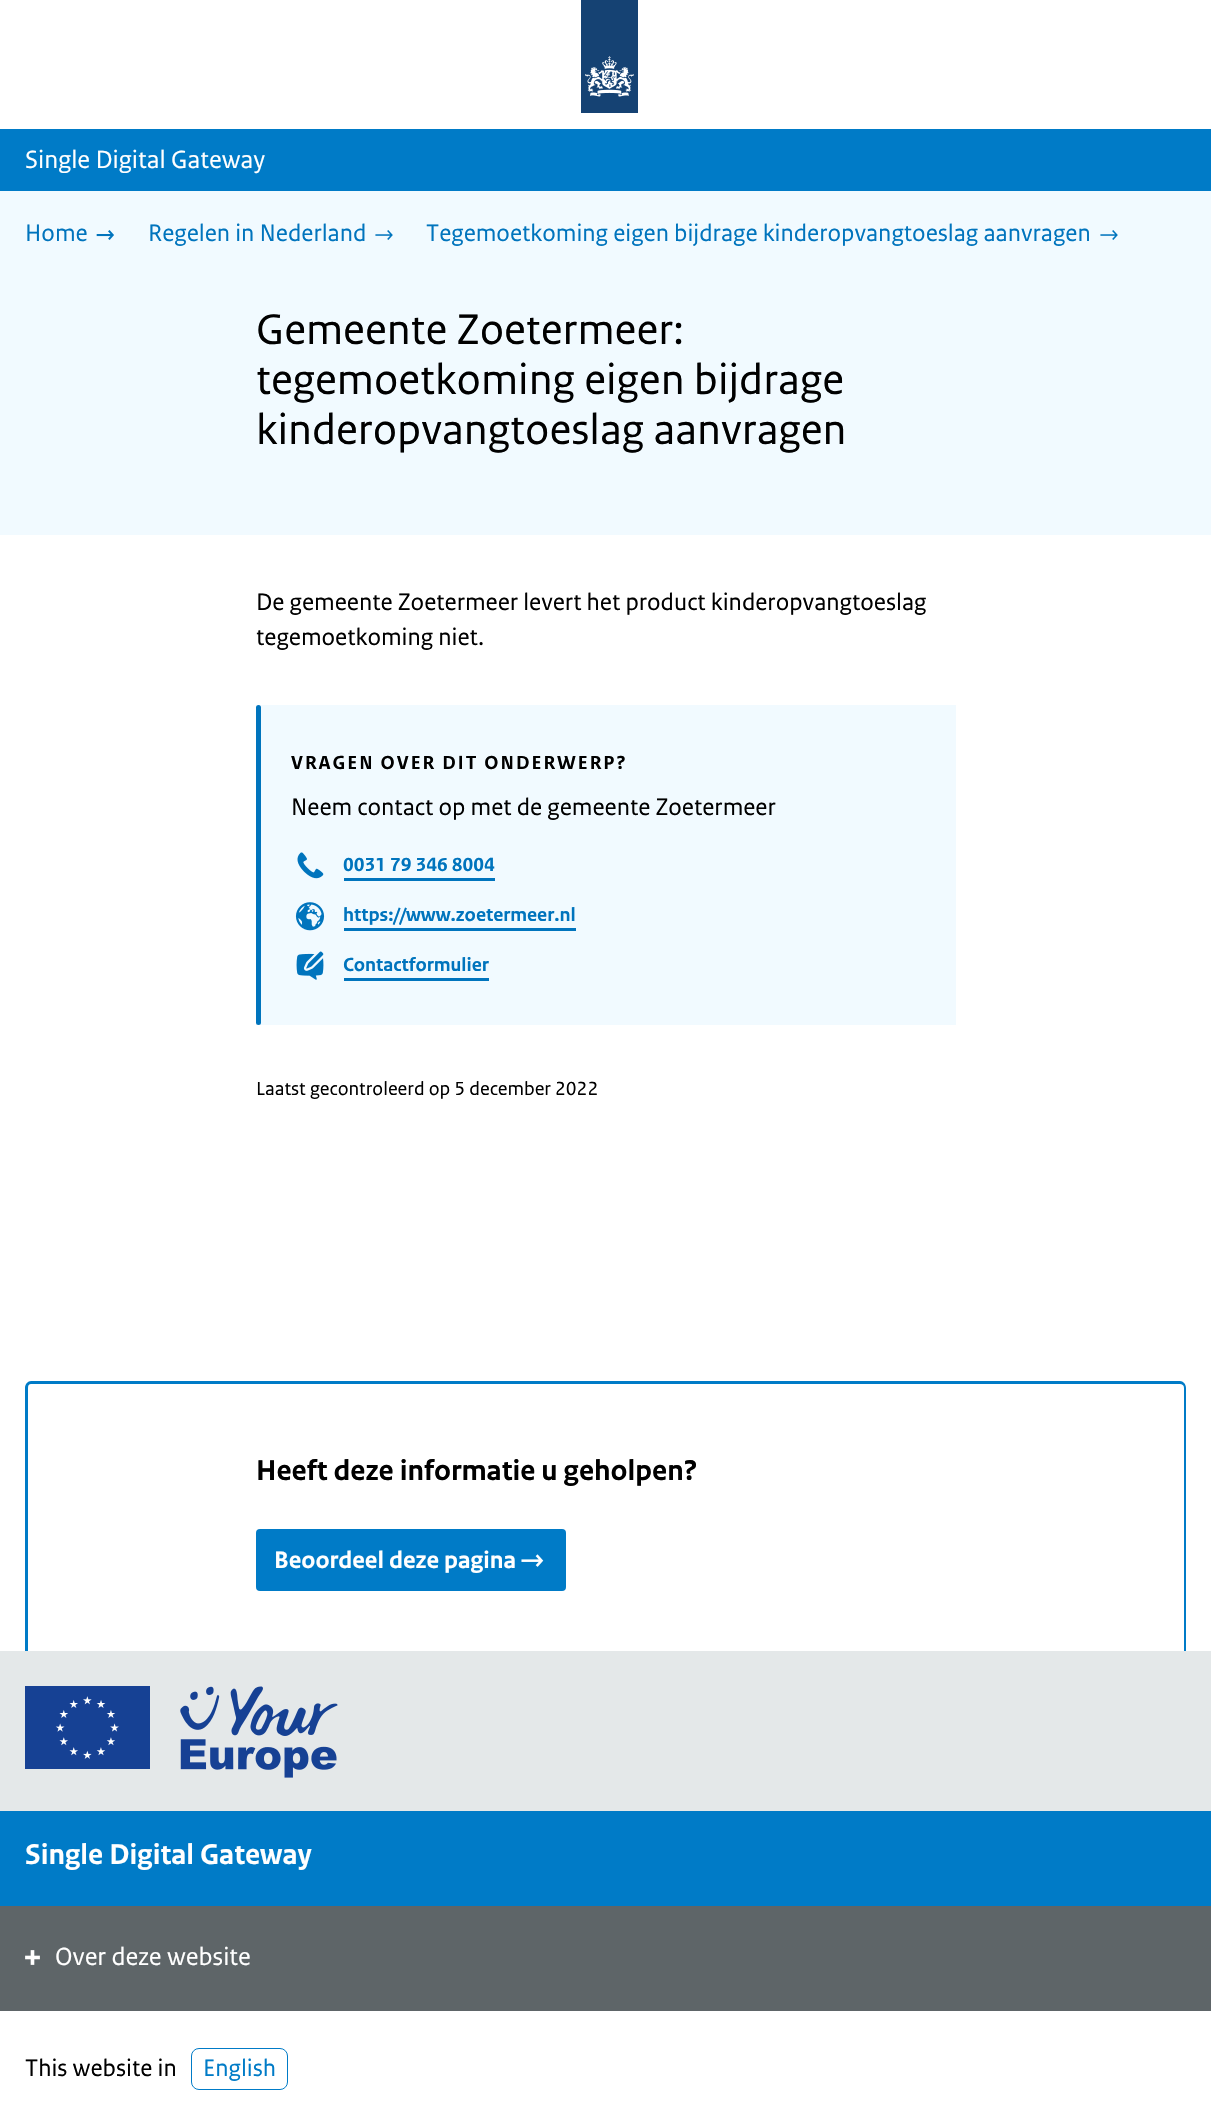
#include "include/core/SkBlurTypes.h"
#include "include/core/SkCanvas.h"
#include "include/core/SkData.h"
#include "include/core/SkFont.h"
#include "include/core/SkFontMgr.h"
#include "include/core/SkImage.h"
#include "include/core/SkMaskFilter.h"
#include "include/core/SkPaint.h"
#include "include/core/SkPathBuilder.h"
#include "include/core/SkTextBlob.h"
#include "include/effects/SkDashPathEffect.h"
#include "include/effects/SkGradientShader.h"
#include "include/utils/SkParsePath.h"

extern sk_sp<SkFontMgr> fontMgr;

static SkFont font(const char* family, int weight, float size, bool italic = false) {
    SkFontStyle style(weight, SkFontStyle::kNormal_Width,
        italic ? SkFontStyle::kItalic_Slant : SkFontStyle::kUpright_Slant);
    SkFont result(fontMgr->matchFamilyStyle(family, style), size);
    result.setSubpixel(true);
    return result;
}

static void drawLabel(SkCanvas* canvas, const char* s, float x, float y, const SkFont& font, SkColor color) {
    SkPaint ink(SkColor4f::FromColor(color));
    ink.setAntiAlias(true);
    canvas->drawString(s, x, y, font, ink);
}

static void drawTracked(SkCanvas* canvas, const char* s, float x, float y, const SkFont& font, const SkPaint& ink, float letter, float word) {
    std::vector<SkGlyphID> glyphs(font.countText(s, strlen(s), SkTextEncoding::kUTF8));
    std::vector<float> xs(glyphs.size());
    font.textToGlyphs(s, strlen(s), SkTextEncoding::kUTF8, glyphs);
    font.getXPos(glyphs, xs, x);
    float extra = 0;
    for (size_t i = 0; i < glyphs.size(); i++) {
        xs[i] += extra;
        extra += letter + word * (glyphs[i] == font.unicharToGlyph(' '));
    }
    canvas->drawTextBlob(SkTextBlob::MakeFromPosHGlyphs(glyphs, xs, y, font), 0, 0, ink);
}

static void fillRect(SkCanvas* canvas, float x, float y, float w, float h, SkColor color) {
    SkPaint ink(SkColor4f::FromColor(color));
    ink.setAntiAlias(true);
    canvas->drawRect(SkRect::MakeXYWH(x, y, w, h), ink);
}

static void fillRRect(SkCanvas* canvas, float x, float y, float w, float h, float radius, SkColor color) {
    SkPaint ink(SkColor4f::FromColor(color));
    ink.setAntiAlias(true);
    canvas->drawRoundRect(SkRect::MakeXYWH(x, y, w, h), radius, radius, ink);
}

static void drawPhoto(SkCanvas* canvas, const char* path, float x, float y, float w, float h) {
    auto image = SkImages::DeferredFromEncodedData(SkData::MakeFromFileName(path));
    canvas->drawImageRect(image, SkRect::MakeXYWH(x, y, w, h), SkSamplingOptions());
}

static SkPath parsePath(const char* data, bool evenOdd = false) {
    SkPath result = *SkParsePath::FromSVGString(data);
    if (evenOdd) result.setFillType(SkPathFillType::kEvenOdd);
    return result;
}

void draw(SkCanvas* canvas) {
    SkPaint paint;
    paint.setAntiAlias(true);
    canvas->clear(0xFFFFFFFF);
    drawPhoto(canvas, "assets/img1.png", 581, 0, 57, 113);
    fillRect(canvas, 0, 129, 1211, 62, 0xFF007BC7);
    SkFont font1 = font("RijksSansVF", 400, 26.25f);
    drawLabel(canvas, "Single Digital Gateway", 25, 168, font1, 0xFFFFFFFF);
    fillRect(canvas, 0, 191, 1211, 344, 0xFFF1FAFF);
    SkFont font2 = font("RijksSansVF", 400, 25);
    drawLabel(canvas, "Home", 25, 241, font2, 0xFF0074BD);
    drawPhoto(canvas, "assets/img2.png", 96, 230, 18, 10);
    drawLabel(canvas, "Regelen in Nederland", 148, 241, font2, 0xFF0074BD);
    drawPhoto(canvas, "assets/img3.png", 375, 230, 18, 10);
    drawLabel(canvas, "Tegemoetkoming eigen bijdrage kinderopvangtoeslag aanvragen", 426, 241, font2, 0xFF0074BD);
    drawPhoto(canvas, "assets/img3.png", 1100, 230, 18, 10);
    SkFont font3 = font("RijksSansVF", 400, 45);
    drawLabel(canvas, "Gemeente Zoetermeer:", 256, 344, font3, 0xFF000000);
    drawLabel(canvas, "tegemoetkoming eigen bijdrage", 256, 394, font3, 0xFF000000);
    drawLabel(canvas, "kinderopvangtoeslag aanvragen", 256, 444, font3, 0xFF000000);
    drawLabel(canvas, "De gemeente Zoetermeer levert het product kinderopvangtoeslag", 256, 610, font2, 0xFF000000);
    drawLabel(canvas, "tegemoetkoming niet.", 256, 645, font2, 0xFF000000);
    fillRect(canvas, 256, 705, 700, 320, 0xFFF1FAFF);
    fillRRect(canvas, 256, 705, 5, 320, 2.5f, 0xFF0074BD);
    SkFont font4 = font("RijksSansVF", 700, 20);
    paint.setColor(0xFF000000);
    drawTracked(canvas, "VRAGEN OVER DIT ONDERWERP?", 291, 769, font4, paint, 2, 0);
    drawLabel(canvas, "Neem contact op met de gemeente Zoetermeer", 291, 815, font2, 0xFF000000);
    drawPhoto(canvas, "assets/img4.png", 297, 852, 27, 27);
    drawLabel(canvas, "0031 79 346 8004", 343, 871, font4, 0xFF0074BD);
    fillRect(canvas, 344, 878, 151, 3, 0xFF0074BD);
    drawPhoto(canvas, "assets/img5.png", 295, 902, 30, 29);
    drawLabel(canvas, "https://www.zoetermeer.nl", 343, 921, font4, 0xFF0074BD);
    fillRect(canvas, 344, 928, 232, 3, 0xFF0074BD);
    drawPhoto(canvas, "assets/img6.png", 296, 951, 28, 29);
    drawLabel(canvas, "Contactformulier", 343, 971, font4, 0xFF0074BD);
    fillRect(canvas, 344, 978, 145, 3, 0xFF0074BD);
    SkFont font5 = font("RijksSansVF", 400, 20);
    drawLabel(canvas, "Laatst gecontroleerd op 5 december 2022", 256, 1095, font5, 0xFF000000);
    paint.setColor(0xFF007BC7);
    canvas->drawPath(parsePath("M31 1381H1180C1183 1381 1186 1384 1186 1388V1651H25V1388C25 1384 28 1381 31 1381ZM31 1384H1180C1182 1384 1184 1385 1184 1388V1651H28V1388C28 1385 29 1384 31 1384Z", true), paint);
    SkFont font6 = font("RijksSansVF", 700, 30);
    drawLabel(canvas, "Heeft deze informatie u geholpen?", 256, 1480, font6, 0xFF000000);
    fillRRect(canvas, 256, 1529, 310, 62, 4, 0xFF007BC7);
    SkFont font7 = font("RijksSansVF", 700, 25);
    drawLabel(canvas, "Beoordeel deze pagina", 274, 1568, font7, 0xFFFFFFFF);
    drawPhoto(canvas, "assets/img7.png", 521, 1554, 23, 13);
    fillRect(canvas, 0, 1651, 1211, 160, 0xFFE4E8E9);
    drawPhoto(canvas, "assets/img8.png", 25, 1686, 313, 92);
    fillRect(canvas, 0, 1811, 1211, 95, 0xFF007BC7);
    drawLabel(canvas, "Single Digital Gateway", 25, 1864, font6, 0xFFFFFFFF);
    fillRect(canvas, 0, 1906, 1211, 105, 0xFF5E6568);
    drawPhoto(canvas, "assets/img9.png", 25, 1950, 15, 15);
    drawLabel(canvas, "Over deze website", 55, 1965, font1, 0xFFFFFFFF);
    drawLabel(canvas, "This website in", 25, 2076, font2, 0xFF000000);
    paint.setStroke(true);
    paint.setStrokeWidth(1);
    canvas->drawRoundRect(SkRect::MakeXYWH(191.5f, 2048.5f, 96, 41), 7.5f, 7.5f, paint);
    drawLabel(canvas, "English", 203, 2076, font2, 0xFF007BC7);
}
